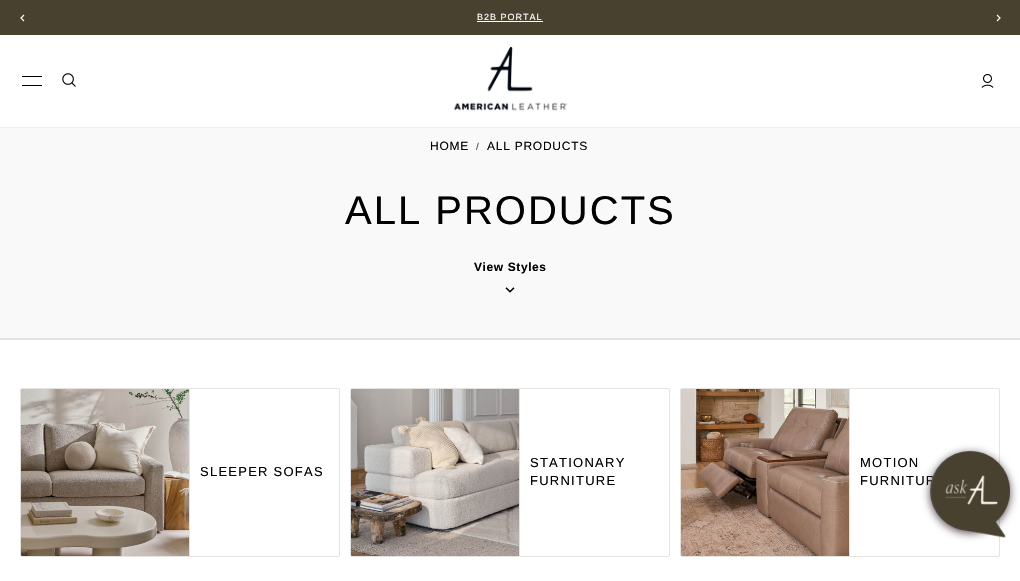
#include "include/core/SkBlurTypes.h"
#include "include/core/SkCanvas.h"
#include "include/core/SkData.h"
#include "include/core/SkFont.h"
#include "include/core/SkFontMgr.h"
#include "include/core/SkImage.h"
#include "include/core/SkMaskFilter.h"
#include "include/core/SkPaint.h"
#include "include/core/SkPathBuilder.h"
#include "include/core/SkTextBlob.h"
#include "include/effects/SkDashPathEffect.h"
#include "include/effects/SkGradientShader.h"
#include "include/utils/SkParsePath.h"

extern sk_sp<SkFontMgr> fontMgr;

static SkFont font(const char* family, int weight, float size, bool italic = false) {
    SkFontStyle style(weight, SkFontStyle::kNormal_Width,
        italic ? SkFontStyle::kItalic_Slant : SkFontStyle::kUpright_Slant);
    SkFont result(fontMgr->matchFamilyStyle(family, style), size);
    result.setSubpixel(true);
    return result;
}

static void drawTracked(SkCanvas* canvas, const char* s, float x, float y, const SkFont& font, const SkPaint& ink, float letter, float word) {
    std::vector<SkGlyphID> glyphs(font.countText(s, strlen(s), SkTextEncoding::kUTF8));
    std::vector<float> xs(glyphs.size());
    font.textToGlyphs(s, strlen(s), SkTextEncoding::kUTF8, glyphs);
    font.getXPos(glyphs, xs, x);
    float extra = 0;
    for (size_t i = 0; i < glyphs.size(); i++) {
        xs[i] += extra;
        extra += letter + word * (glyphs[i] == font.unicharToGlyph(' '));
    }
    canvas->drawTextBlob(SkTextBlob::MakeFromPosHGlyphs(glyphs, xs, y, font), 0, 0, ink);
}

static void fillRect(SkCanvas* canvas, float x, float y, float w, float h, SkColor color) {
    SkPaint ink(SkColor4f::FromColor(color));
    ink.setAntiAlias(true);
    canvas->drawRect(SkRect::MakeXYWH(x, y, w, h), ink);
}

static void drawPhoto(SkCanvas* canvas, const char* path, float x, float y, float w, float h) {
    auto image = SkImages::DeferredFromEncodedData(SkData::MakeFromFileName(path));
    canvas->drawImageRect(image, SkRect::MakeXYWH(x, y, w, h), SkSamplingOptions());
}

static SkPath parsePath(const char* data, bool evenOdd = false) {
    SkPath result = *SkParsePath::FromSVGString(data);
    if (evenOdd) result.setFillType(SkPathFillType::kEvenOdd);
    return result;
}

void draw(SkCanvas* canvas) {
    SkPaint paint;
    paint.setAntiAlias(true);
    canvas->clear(0xFFFFFFFF);
    fillRect(canvas, 0, 127, 1020, 1, 0xFFEEEEEE);
    fillRect(canvas, 0, 0, 1020, 35, 0xFF49412F);
    paint.setStroke(true);
    paint.setStrokeWidth(1.2f);
    paint.setColor(0xFFFFFFFF);
    canvas->drawPath(parsePath("M24 15L21 18L24 21"), paint);
    SkFont font1 = font("Liberation Sans", 400, 9);
    paint.setStroke(false);
    drawTracked(canvas, "B2B PORTAL", 477, 20, font1, paint, 1, 0);
    fillRect(canvas, 477, 21, 66, 1, 0xFFFFFFFF);
    paint.setStroke(true);
    canvas->drawPath(parsePath("M997 21L1000 18L997 15"), paint);
    fillRect(canvas, 22, 76, 20, 1, 0xFF000000);
    fillRect(canvas, 22, 85, 20, 1, 0xFF000000);
    drawPhoto(canvas, "assets/img1.png", 62, 73, 14, 14);
    drawPhoto(canvas, "assets/img2.png", 453, 47, 115, 64);
    drawPhoto(canvas, "assets/img3.png", 981, 74, 13, 14);
    fillRect(canvas, 0, 128, 1020, 210, 0xFFFAF9F9);
    SkFont font2 = font("Liberation Sans", 400, 12);
    paint.setStroke(false);
    paint.setColor(0xFF000000);
    drawTracked(canvas, "HOME", 430, 150, font2, paint, 0.75f, 0);
    SkFont font3 = font("Liberation Sans", 400, 10);
    paint.setColor(0xFF49412F);
    drawTracked(canvas, "/", 476, 150, font3, paint, 0.75f, 0);
    paint.setColor(0xFF000000);
    drawTracked(canvas, "ALL PRODUCTS", 487, 150, font2, paint, 0.75f, 0);
    SkFont font4 = font("Liberation Sans", 400, 40);
    drawTracked(canvas, "ALL PRODUCTS", 345, 224, font4, paint, 2, 0);
    SkFont font5 = font("Liberation Sans", 700, 12);
    drawTracked(canvas, "View Styles", 474, 271, font5, paint, 0.6f, 0);
    drawPhoto(canvas, "assets/img4.png", 505, 287, 10, 6);
    fillRect(canvas, 0, 338, 1020, 2, 0xFFE6E3DF);
    paint.setStroke(true);
    paint.setStrokeWidth(1);
    paint.setColor(0xFFE6E3DF);
    canvas->drawRoundRect(SkRect::MakeXYWH(20.5f, 388.5f, 319, 168), 1.5f, 1.5f, paint);
    fillRect(canvas, 189, 389, 1, 167, 0xFFE6E3DF);
    drawPhoto(canvas, "assets/img5.png", 21, 389, 168, 167);
    SkFont font6 = font("Liberation Sans", 400, 13);
    paint.setStroke(false);
    paint.setColor(0xFF000000);
    drawTracked(canvas, "SLEEPER SOFAS", 200, 476, font6, paint, 1.25f, 0);
    paint.setStroke(true);
    paint.setColor(0xFFE6E3DF);
    canvas->drawRoundRect(SkRect::MakeXYWH(350.5f, 388.5f, 319, 168), 1.5f, 1.5f, paint);
    fillRect(canvas, 519, 389, 1, 167, 0xFFE6E3DF);
    drawPhoto(canvas, "assets/img6.png", 351, 389, 168, 167);
    paint.setStroke(false);
    paint.setColor(0xFF000000);
    drawTracked(canvas, "STATIONARY", 530, 467, font6, paint, 1.25f, 0);
    drawTracked(canvas, "FURNITURE", 530, 485, font6, paint, 1.25f, 0);
    paint.setStroke(true);
    paint.setColor(0xFFE6E3DF);
    canvas->drawRoundRect(SkRect::MakeXYWH(680.5f, 388.5f, 319, 168), 1.5f, 1.5f, paint);
    fillRect(canvas, 849, 389, 1, 167, 0xFFE6E3DF);
    drawPhoto(canvas, "assets/img7.png", 681, 389, 168, 167);
    paint.setStroke(false);
    paint.setColor(0xFF000000);
    drawTracked(canvas, "MOTION", 860, 467, font6, paint, 1.25f, 0);
    drawTracked(canvas, "FURNITUR", 860, 485, font6, paint, 1.25f, 0);
    paint.setColor(0xFF56494D);
    paint.setMaskFilter(SkMaskFilter::MakeBlur(kNormal_SkBlurStyle, 4));
    canvas->drawRoundRect(SkRect::MakeXYWH(930, 453, 80, 80), 40, 40, paint);
    paint.setMaskFilter(nullptr);
    paint.setColor(0xFF595959);
    canvas->drawCircle(970, 491, 40, paint);
    drawPhoto(canvas, "assets/img8.png", 930, 451, 80, 87);
}
